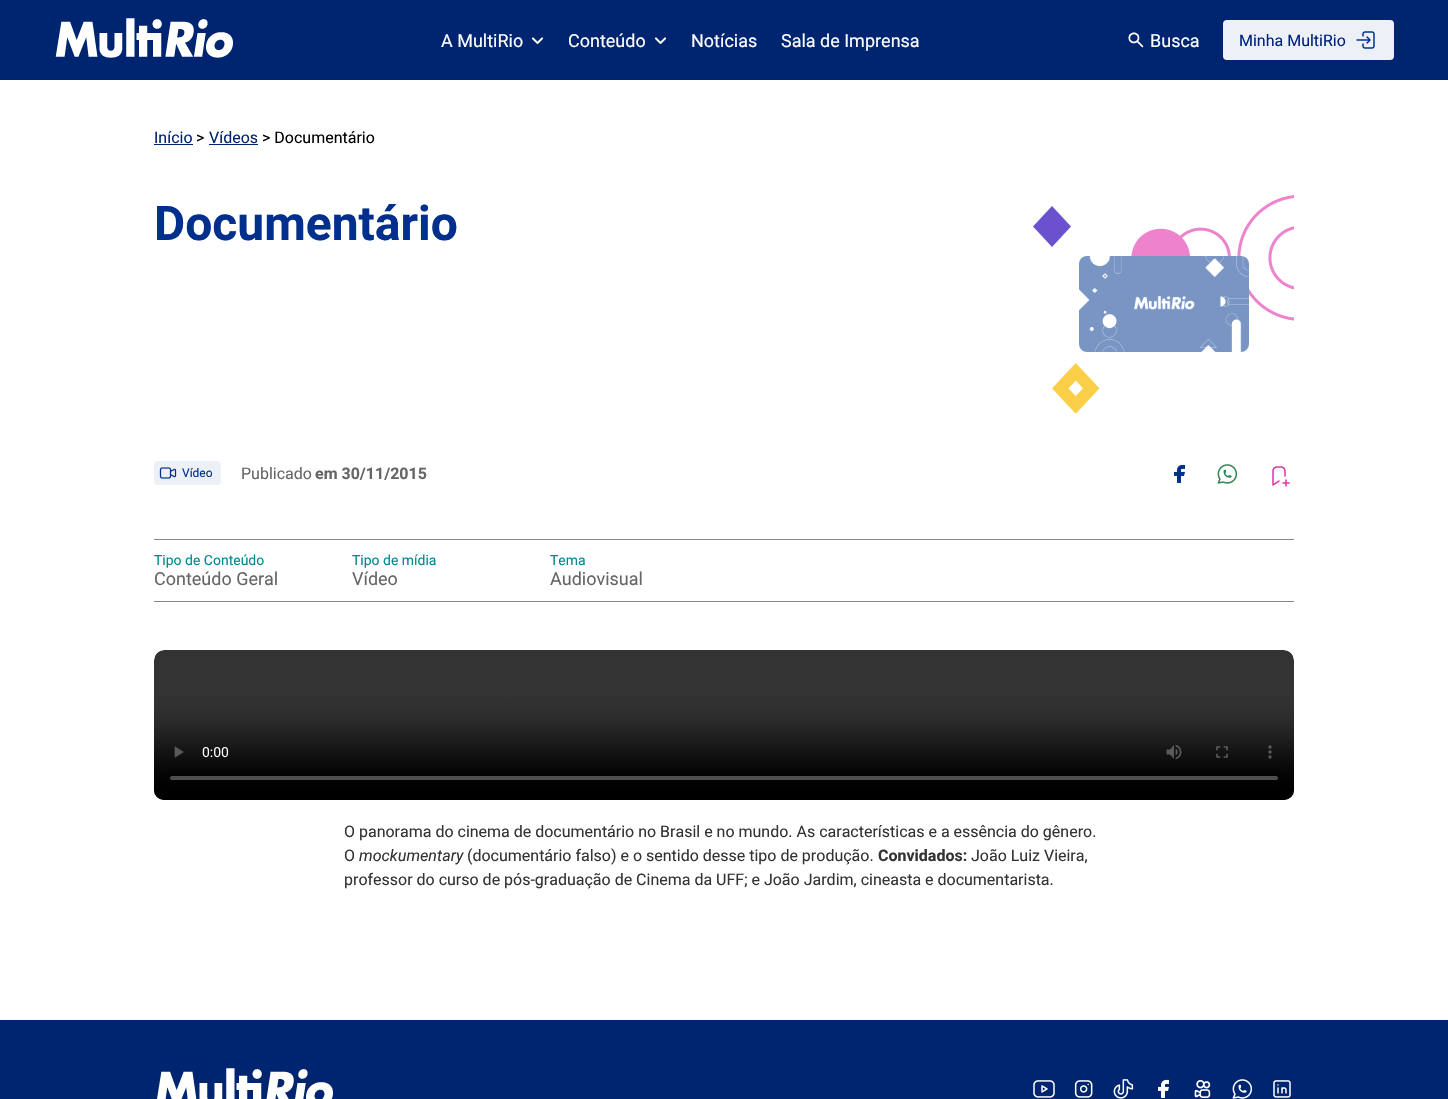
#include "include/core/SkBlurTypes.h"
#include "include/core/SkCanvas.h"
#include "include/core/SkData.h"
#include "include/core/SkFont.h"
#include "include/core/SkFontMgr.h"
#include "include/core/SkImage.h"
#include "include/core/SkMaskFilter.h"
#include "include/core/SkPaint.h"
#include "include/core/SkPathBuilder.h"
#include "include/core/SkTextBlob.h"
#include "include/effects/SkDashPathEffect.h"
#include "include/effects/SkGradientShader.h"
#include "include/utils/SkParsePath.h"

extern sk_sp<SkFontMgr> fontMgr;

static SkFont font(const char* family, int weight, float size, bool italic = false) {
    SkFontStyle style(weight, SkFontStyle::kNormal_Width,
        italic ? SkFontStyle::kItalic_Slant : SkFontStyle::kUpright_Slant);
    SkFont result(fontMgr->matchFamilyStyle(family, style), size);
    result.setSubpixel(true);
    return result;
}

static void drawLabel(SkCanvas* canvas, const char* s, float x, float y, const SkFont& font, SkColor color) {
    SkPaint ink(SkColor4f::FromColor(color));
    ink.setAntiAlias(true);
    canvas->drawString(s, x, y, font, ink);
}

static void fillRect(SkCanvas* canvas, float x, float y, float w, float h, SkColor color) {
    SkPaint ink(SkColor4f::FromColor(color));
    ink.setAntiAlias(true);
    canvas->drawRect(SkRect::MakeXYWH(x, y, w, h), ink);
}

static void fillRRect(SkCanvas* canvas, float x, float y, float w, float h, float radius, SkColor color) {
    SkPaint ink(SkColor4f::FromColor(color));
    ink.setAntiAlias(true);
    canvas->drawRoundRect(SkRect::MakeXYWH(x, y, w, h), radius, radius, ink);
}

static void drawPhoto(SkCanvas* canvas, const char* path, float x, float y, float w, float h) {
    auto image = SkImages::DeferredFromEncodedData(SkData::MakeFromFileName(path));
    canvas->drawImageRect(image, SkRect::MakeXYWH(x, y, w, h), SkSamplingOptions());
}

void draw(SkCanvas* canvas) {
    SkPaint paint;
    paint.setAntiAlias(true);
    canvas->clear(0xFFFFFFFF);
    fillRect(canvas, 0, 0, 1448, 80, 0xFF002570);
    drawPhoto(canvas, "assets/img1.png", 55, 18, 178, 40);
    SkFont font1 = font("Roboto", 400, 18);
    drawLabel(canvas, "A MultiRio", 441, 47, font1, 0xFFFFFFFF);
    drawPhoto(canvas, "assets/img2.png", 531, 37, 13, 7);
    drawLabel(canvas, "Conteúdo", 568, 47, font1, 0xFFFFFFFF);
    drawPhoto(canvas, "assets/img2.png", 654, 37, 13, 7);
    drawLabel(canvas, "Notícias", 691, 47, font1, 0xFFFFFFFF);
    drawLabel(canvas, "Sala de Imprensa", 781, 47, font1, 0xFFFFFFFF);
    drawPhoto(canvas, "assets/img3.png", 1128, 32, 16, 16);
    drawLabel(canvas, "Busca", 1150, 47, font1, 0xFFFFFFFF);
    fillRRect(canvas, 1223, 20, 171, 40, 4, 0xFFEDF1F7);
    SkFont font2 = font("Roboto", 400, 16);
    drawLabel(canvas, "Minha MultiRio", 1239, 46, font2, 0xFF00227F);
    drawPhoto(canvas, "assets/img4.png", 1356, 31, 19, 18);
    drawLabel(canvas, "Início", 154, 143, font2, 0xFF002570);
    fillRect(canvas, 154, 144, 39, 1, 0xFF002570);
    drawLabel(canvas, ">", 196, 143, font2, 0xFF000000);
    drawLabel(canvas, "Vídeos", 209, 143, font2, 0xFF002570);
    fillRect(canvas, 209, 144, 49, 1, 0xFF002570);
    drawLabel(canvas, "> Documentário", 262, 143, font2, 0xFF000000);
    SkFont font3 = font("Roboto", 700, 48);
    drawLabel(canvas, "Documentário", 154, 240, font3, 0xFF002F8E);
    drawPhoto(canvas, "assets/img5.png", 1033, 195, 261, 218);
    drawPhoto(canvas, "assets/img6.png", 1079, 256, 170, 96);
    fillRRect(canvas, 154, 461, 67, 24, 4, 0xFFEDF1F7);
    drawPhoto(canvas, "assets/img7.png", 159, 467, 18, 12);
    SkFont font4 = font("Roboto", 400, 12);
    drawLabel(canvas, "Vídeo", 182, 477, font4, 0xFF002F8E);
    drawLabel(canvas, "Publicado", 241, 479, font2, 0xFF666666);
    SkFont font5 = font("Roboto", 700, 16);
    drawLabel(canvas, "em 30/11/2015", 315, 479, font5, 0xFF666666);
    drawPhoto(canvas, "assets/img8.png", 1174, 464, 11, 19);
    drawPhoto(canvas, "assets/img9.png", 1217, 464, 21, 20);
    drawPhoto(canvas, "assets/img10.png", 1272, 466, 18, 21);
    fillRect(canvas, 154, 539, 1140, 1, 0xFF888888);
    fillRect(canvas, 154, 601, 1140, 1, 0xFF888888);
    SkFont font6 = font("Roboto", 400, 14);
    drawLabel(canvas, "Tipo de Conteúdo", 154, 565, font6, 0xFF008891);
    drawLabel(canvas, "Conteúdo Geral", 154, 585, font1, 0xFF666666);
    drawLabel(canvas, "Tipo de mídia", 352, 565, font6, 0xFF008891);
    drawLabel(canvas, "Vídeo", 352, 585, font1, 0xFF666666);
    drawLabel(canvas, "Tema", 550, 565, font6, 0xFF008891);
    drawLabel(canvas, "Audiovisual", 550, 585, font1, 0xFF666666);
    drawPhoto(canvas, "assets/img11.png", 154, 650, 1140, 150);
    drawLabel(canvas, "O panorama do cinema de documentário no Brasil e no mundo. As características e a essência do gênero.", 344, 837, font2, 0xFF333333);
    drawLabel(canvas, "O", 344, 861, font2, 0xFF333333);
    SkFont font7 = font("Roboto", 400, 16, true);
    drawLabel(canvas, "mockumentary", 359, 861, font7, 0xFF333333);
    drawLabel(canvas, "(documentário falso) e o sentido desse tipo de produção.", 467, 861, font2, 0xFF333333);
    drawLabel(canvas, "Convidados:", 878, 861, font5, 0xFF333333);
    drawLabel(canvas, "João Luiz Vieira,", 971, 861, font2, 0xFF333333);
    drawLabel(canvas, "professor do curso de pós-graduação de Cinema da UFF; e João Jardim, cineasta e documentarista.", 344, 885, font2, 0xFF333333);
    fillRect(canvas, 0, 1020, 1448, 79, 0xFF002570);
    drawPhoto(canvas, "assets/img12.png", 157, 1068, 176, 31);
    drawPhoto(canvas, "assets/img13.png", 1033, 1080, 22, 18);
    drawPhoto(canvas, "assets/img14.png", 1074, 1080, 19, 18);
    drawPhoto(canvas, "assets/img15.png", 1113, 1079, 21, 20);
    drawPhoto(canvas, "assets/img16.png", 1158, 1079, 11, 19);
    drawPhoto(canvas, "assets/img17.png", 1194, 1080, 17, 18);
    drawPhoto(canvas, "assets/img18.png", 1232, 1079, 21, 20);
    drawPhoto(canvas, "assets/img19.png", 1273, 1080, 18, 18);
}
